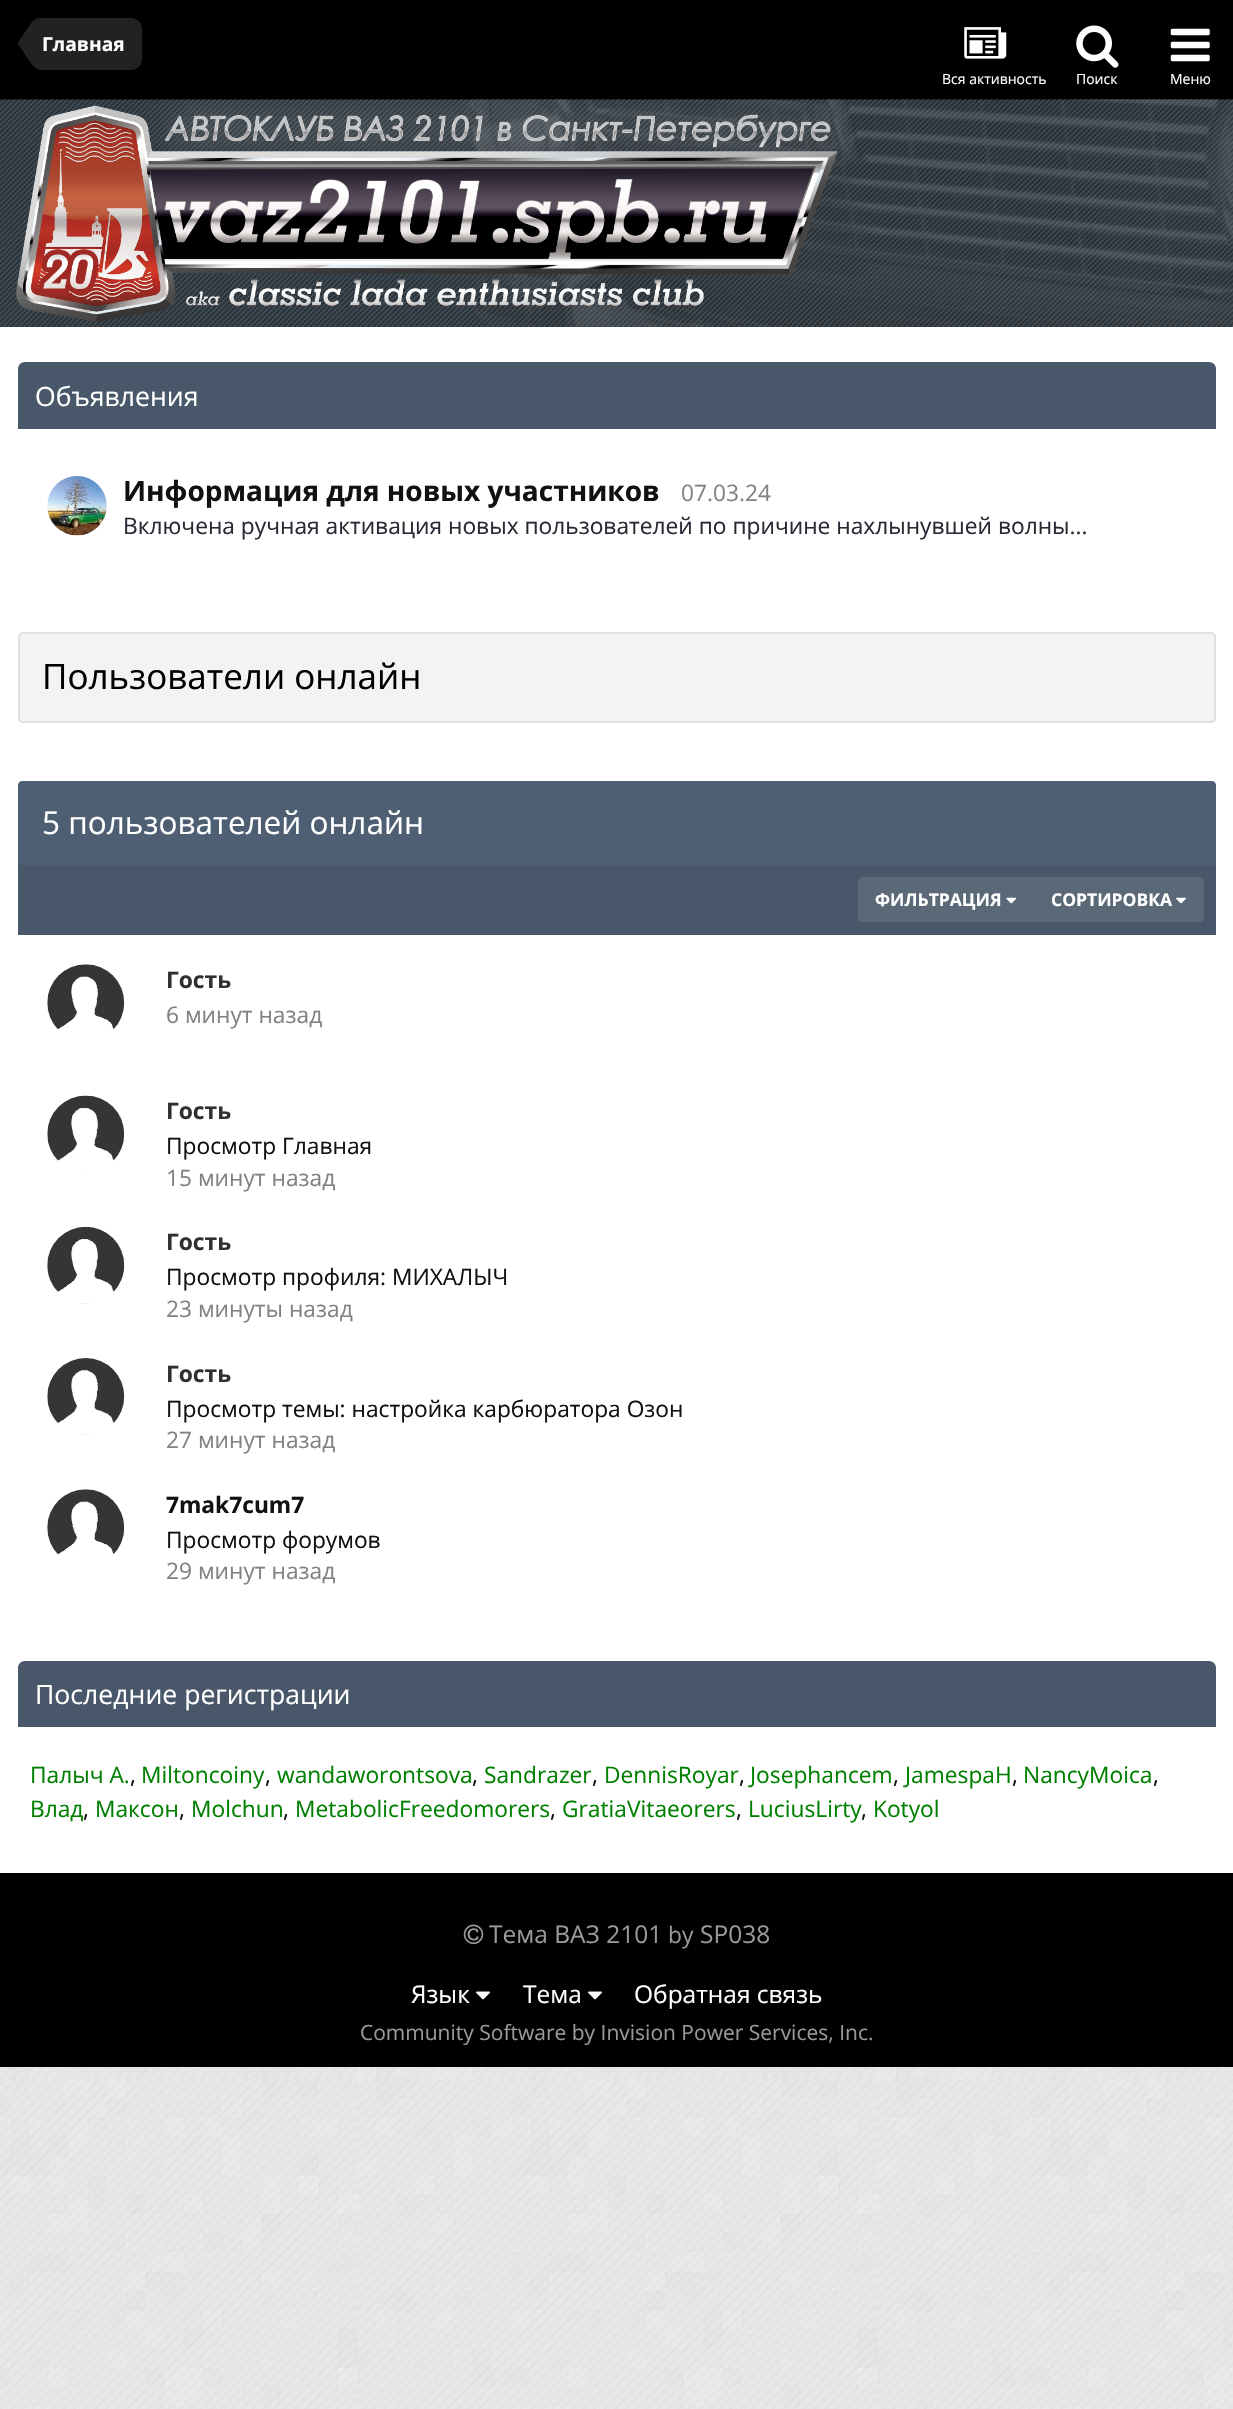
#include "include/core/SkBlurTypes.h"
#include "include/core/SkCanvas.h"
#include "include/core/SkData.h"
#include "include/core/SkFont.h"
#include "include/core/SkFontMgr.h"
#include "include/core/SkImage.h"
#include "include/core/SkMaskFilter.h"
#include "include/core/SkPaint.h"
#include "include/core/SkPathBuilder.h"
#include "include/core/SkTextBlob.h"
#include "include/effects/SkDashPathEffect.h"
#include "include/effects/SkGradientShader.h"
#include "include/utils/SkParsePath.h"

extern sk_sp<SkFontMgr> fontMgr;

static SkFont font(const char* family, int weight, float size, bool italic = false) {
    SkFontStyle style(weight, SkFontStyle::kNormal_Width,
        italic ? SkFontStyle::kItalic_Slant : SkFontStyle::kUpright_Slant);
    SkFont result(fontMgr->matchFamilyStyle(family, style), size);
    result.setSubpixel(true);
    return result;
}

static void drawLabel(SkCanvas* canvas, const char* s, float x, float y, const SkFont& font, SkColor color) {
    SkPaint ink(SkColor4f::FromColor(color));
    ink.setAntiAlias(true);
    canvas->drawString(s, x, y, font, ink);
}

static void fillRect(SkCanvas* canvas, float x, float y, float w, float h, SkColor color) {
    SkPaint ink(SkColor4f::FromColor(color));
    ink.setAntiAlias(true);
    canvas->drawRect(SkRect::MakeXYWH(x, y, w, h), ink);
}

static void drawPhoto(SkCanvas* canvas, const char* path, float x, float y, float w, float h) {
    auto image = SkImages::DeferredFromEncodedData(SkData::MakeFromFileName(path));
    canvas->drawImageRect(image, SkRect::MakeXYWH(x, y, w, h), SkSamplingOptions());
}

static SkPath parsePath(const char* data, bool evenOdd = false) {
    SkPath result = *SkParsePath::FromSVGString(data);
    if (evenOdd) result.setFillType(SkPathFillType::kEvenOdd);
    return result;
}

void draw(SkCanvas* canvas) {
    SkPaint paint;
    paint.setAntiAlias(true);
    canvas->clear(0xFFEBEEF2);
    drawPhoto(canvas, "assets/img1.png", 0, 2067, 1233, 342);
    fillRect(canvas, 0, 0, 1233, 100, 0xFF000000);
    paint.setColor(0xFF222222);
    canvas->drawPath(parsePath("M42 18H131C137 18 142 23 142 29V59C142 65 137 70 131 70H42Z"), paint);
    canvas->drawPath(parsePath("M18 44H42V70C35.5 70 31.5 64 28 59ZM42 17.5V44H18V42.5L30.5 24C32 22 31.5 22 33 21C35.5 19 39 17.5 42 17.5Z"), paint);
    SkFont font1 = font("Open Sans", 700, 19.25f);
    drawLabel(canvas, "Главная", 42, 51, font1, 0xFFFFFFFF);
    drawPhoto(canvas, "assets/img2.png", 964, 27, 43, 32);
    SkFont font2 = font("Open Sans", 400, 14);
    drawLabel(canvas, "Вся активность", 942, 84, font2, 0xFFFFFFFF);
    drawPhoto(canvas, "assets/img3.png", 1076, 25, 43, 43);
    drawLabel(canvas, "Поиск", 1076, 84, font2, 0xFFFFFFFF);
    drawPhoto(canvas, "assets/img4.png", 1170, 28, 40, 34);
    drawLabel(canvas, "Меню", 1170, 84, font2, 0xFFFFFFFF);
    fillRect(canvas, 0, 100, 1233, 227, 0xFF19242D);
    drawPhoto(canvas, "assets/img5.png", 0, 99, 1233, 228);
    drawPhoto(canvas, "assets/img6.png", 16, 100, 826, 222);
    fillRect(canvas, 0, 327, 1233, 1546, 0xFFFFFFFF);
    paint.setColor(0xFF485769);
    canvas->drawPath(parsePath("M25 362H1209C1213 362 1216 365 1216 369V429H18V369C18 365 21 362 25 362Z"), paint);
    SkFont font3 = font("Open Sans", 400, 26.6f);
    drawLabel(canvas, "Объявления", 35, 406, font3, 0xFFFFFFFF);
    drawPhoto(canvas, "assets/img7.png", 47, 476, 60, 60);
    SkFont font4 = font("Open Sans", 700, 28);
    drawLabel(canvas, "Информация для новых участников", 123, 501, font4, 0xFF111111);
    SkFont font5 = font("Open Sans", 400, 22.75f);
    drawLabel(canvas, "07.03.24", 681, 501, font5, 0xFF828282);
    drawLabel(canvas, "Включена ручная активация новых пользователей по причине нахлынувшей волны...", 123, 534, font5, 0xFF272A34);
    paint.setColor(0xFFF3F3F3);
    canvas->drawRoundRect(SkRect::MakeXYWH(19, 633, 1196, 89), 4, 4, paint);
    paint.setStroke(true);
    paint.setStrokeWidth(2);
    paint.setColor(0xFFE0E0E0);
    canvas->drawRoundRect(SkRect::MakeXYWH(19, 633, 1196, 89), 4, 4, paint);
    SkFont font6 = font("Open Sans", 400, 35);
    drawLabel(canvas, "Пользователи онлайн", 42, 689, font6, 0xFF000000);
    paint.setStroke(false);
    paint.setColor(0xFF4E5F74);
    canvas->drawPath(parsePath("M22 781H1212C1214 781 1216 783 1216 785V865H18V785C18 783 20 781 22 781Z"), paint);
    SkFont font7 = font("Open Sans", 400, 31.5f);
    drawLabel(canvas, "5 пользователей онлайн", 42, 834, font7, 0xFFFFFFFF);
    fillRect(canvas, 18, 865, 1198, 70, 0xFF485769);
    paint.setColor(0xFF5A6878);
    canvas->drawPath(parsePath("M862 877H1033V922H862C860 922 858 920 858 918V881C858 879 860 877 862 877Z"), paint);
    SkFont font8 = font("Open Sans", 700, 17.5f);
    drawLabel(canvas, "ФИЛЬТРАЦИЯ", 875, 906, font8, 0xFFFFFFFF);
    drawPhoto(canvas, "assets/img8.png", 1006, 897, 11, 7);
    canvas->drawPath(parsePath("M1033 877H1200C1202 877 1204 879 1204 881V918C1204 920 1202 922 1200 922H1033Z"), paint);
    drawLabel(canvas, "СОРТИРОВКА", 1051, 906, font8, 0xFFFFFFFF);
    drawPhoto(canvas, "assets/img9.png", 1176, 897, 10, 7);
    drawPhoto(canvas, "assets/img10.png", 47, 964, 78, 66);
    SkFont font9 = font("Open Sans", 700, 22.75f);
    drawLabel(canvas, "Гость", 166, 988, font9, 0xFF303030);
    drawLabel(canvas, "6 минут назад", 166, 1023, font5, 0xFF828282);
    drawPhoto(canvas, "assets/img11.png", 47, 1095, 78, 78);
    drawLabel(canvas, "Гость", 166, 1119, font9, 0xFF303030);
    drawLabel(canvas, "Просмотр Главная", 166, 1154, font5, 0xFF111111);
    drawLabel(canvas, "15 минут назад", 166, 1186, font5, 0xFF828282);
    drawPhoto(canvas, "assets/img12.png", 47, 1226, 78, 78);
    drawLabel(canvas, "Гость", 166, 1250, font9, 0xFF303030);
    drawLabel(canvas, "Просмотр профиля: МИХАЛЫЧ", 166, 1285, font5, 0xFF111111);
    drawLabel(canvas, "23 минуты назад", 166, 1317, font5, 0xFF828282);
    drawPhoto(canvas, "assets/img13.png", 47, 1358, 78, 77);
    drawLabel(canvas, "Гость", 166, 1382, font9, 0xFF303030);
    drawLabel(canvas, "Просмотр темы: настройка карбюратора Озон", 166, 1417, font5, 0xFF111111);
    drawLabel(canvas, "27 минут назад", 166, 1448, font5, 0xFF828282);
    drawPhoto(canvas, "assets/img14.png", 47, 1489, 78, 66);
    drawLabel(canvas, "7mak7cum7", 166, 1513, font9, 0xFF111111);
    drawLabel(canvas, "Просмотр форумов", 166, 1548, font5, 0xFF111111);
    drawLabel(canvas, "29 минут назад", 166, 1579, font5, 0xFF828282);
    paint.setColor(0xFF485769);
    canvas->drawPath(parsePath("M25 1661H1209C1213 1661 1216 1664 1216 1668V1727H18V1668C18 1664 21 1661 25 1661Z"), paint);
    drawLabel(canvas, "Последние регистрации", 35, 1704, font3, 0xFFFFFFFF);
    drawLabel(canvas, "Палыч А.", 30, 1783, font5, 0xFF008000);
    drawLabel(canvas, ",", 130, 1783, font5, 0xFF111111);
    drawLabel(canvas, "Miltoncoiny", 141, 1783, font5, 0xFF008000);
    drawLabel(canvas, ",", 265, 1783, font5, 0xFF111111);
    drawLabel(canvas, "wandaworontsova", 277, 1783, font5, 0xFF008000);
    drawLabel(canvas, ",", 472, 1783, font5, 0xFF111111);
    drawLabel(canvas, "Sandrazer", 484, 1783, font5, 0xFF008000);
    drawLabel(canvas, ",", 592, 1783, font5, 0xFF111111);
    drawLabel(canvas, "DennisRoyar", 604, 1783, font5, 0xFF008000);
    drawLabel(canvas, ",", 739, 1783, font5, 0xFF111111);
    drawLabel(canvas, "Josephancem", 750, 1783, font5, 0xFF008000);
    drawLabel(canvas, ",", 893, 1783, font5, 0xFF111111);
    drawLabel(canvas, "JamespaH", 905, 1783, font5, 0xFF008000);
    drawLabel(canvas, ",", 1012, 1783, font5, 0xFF111111);
    drawLabel(canvas, "NancyMoica", 1023, 1783, font5, 0xFF008000);
    drawLabel(canvas, ",", 1153, 1783, font5, 0xFF111111);
    drawLabel(canvas, "Влад", 30, 1817, font5, 0xFF008000);
    drawLabel(canvas, ",", 83, 1817, font5, 0xFF111111);
    drawLabel(canvas, "Максон", 95, 1817, font5, 0xFF008000);
    drawLabel(canvas, ",", 179, 1817, font5, 0xFF111111);
    drawLabel(canvas, "Molchun", 191, 1817, font5, 0xFF008000);
    drawLabel(canvas, ",", 283, 1817, font5, 0xFF111111);
    drawLabel(canvas, "MetabolicFreedomorers", 295, 1817, font5, 0xFF008000);
    drawLabel(canvas, ",", 550, 1817, font5, 0xFF111111);
    drawLabel(canvas, "GratiaVitaeorers", 562, 1817, font5, 0xFF008000);
    drawLabel(canvas, ",", 736, 1817, font5, 0xFF111111);
    drawLabel(canvas, "LuciusLirty", 748, 1817, font5, 0xFF008000);
    drawLabel(canvas, ",", 861, 1817, font5, 0xFF111111);
    drawLabel(canvas, "Kotyol", 873, 1817, font5, 0xFF008000);
    fillRect(canvas, 0, 1873, 1233, 194, 0xFF000000);
    drawPhoto(canvas, "assets/img15.png", 463, 1924, 21, 21);
    SkFont font10 = font("Open Sans", 400, 24.5f);
    drawLabel(canvas, "Тема ВАЗ 2101", 489, 1943, font10, 0xFF999999);
    drawLabel(canvas, "by", 668, 1943, font5, 0xFF999999);
    drawLabel(canvas, "SP038", 700, 1943, font10, 0xFF999999);
    drawLabel(canvas, "Язык", 411, 2003, font10, 0xFFFFFFFF);
    drawPhoto(canvas, "assets/img16.png", 476, 1991, 14, 9);
    drawLabel(canvas, "Тема", 523, 2003, font10, 0xFFFFFFFF);
    drawPhoto(canvas, "assets/img16.png", 588, 1991, 14, 9);
    drawLabel(canvas, "Обратная связь", 634, 2003, font10, 0xFFFFFFFF);
    SkFont font11 = font("Open Sans", 400, 21);
    drawLabel(canvas, "Community Software by Invision Power Services, Inc.", 360, 2040, font11, 0xFF999999);
}
